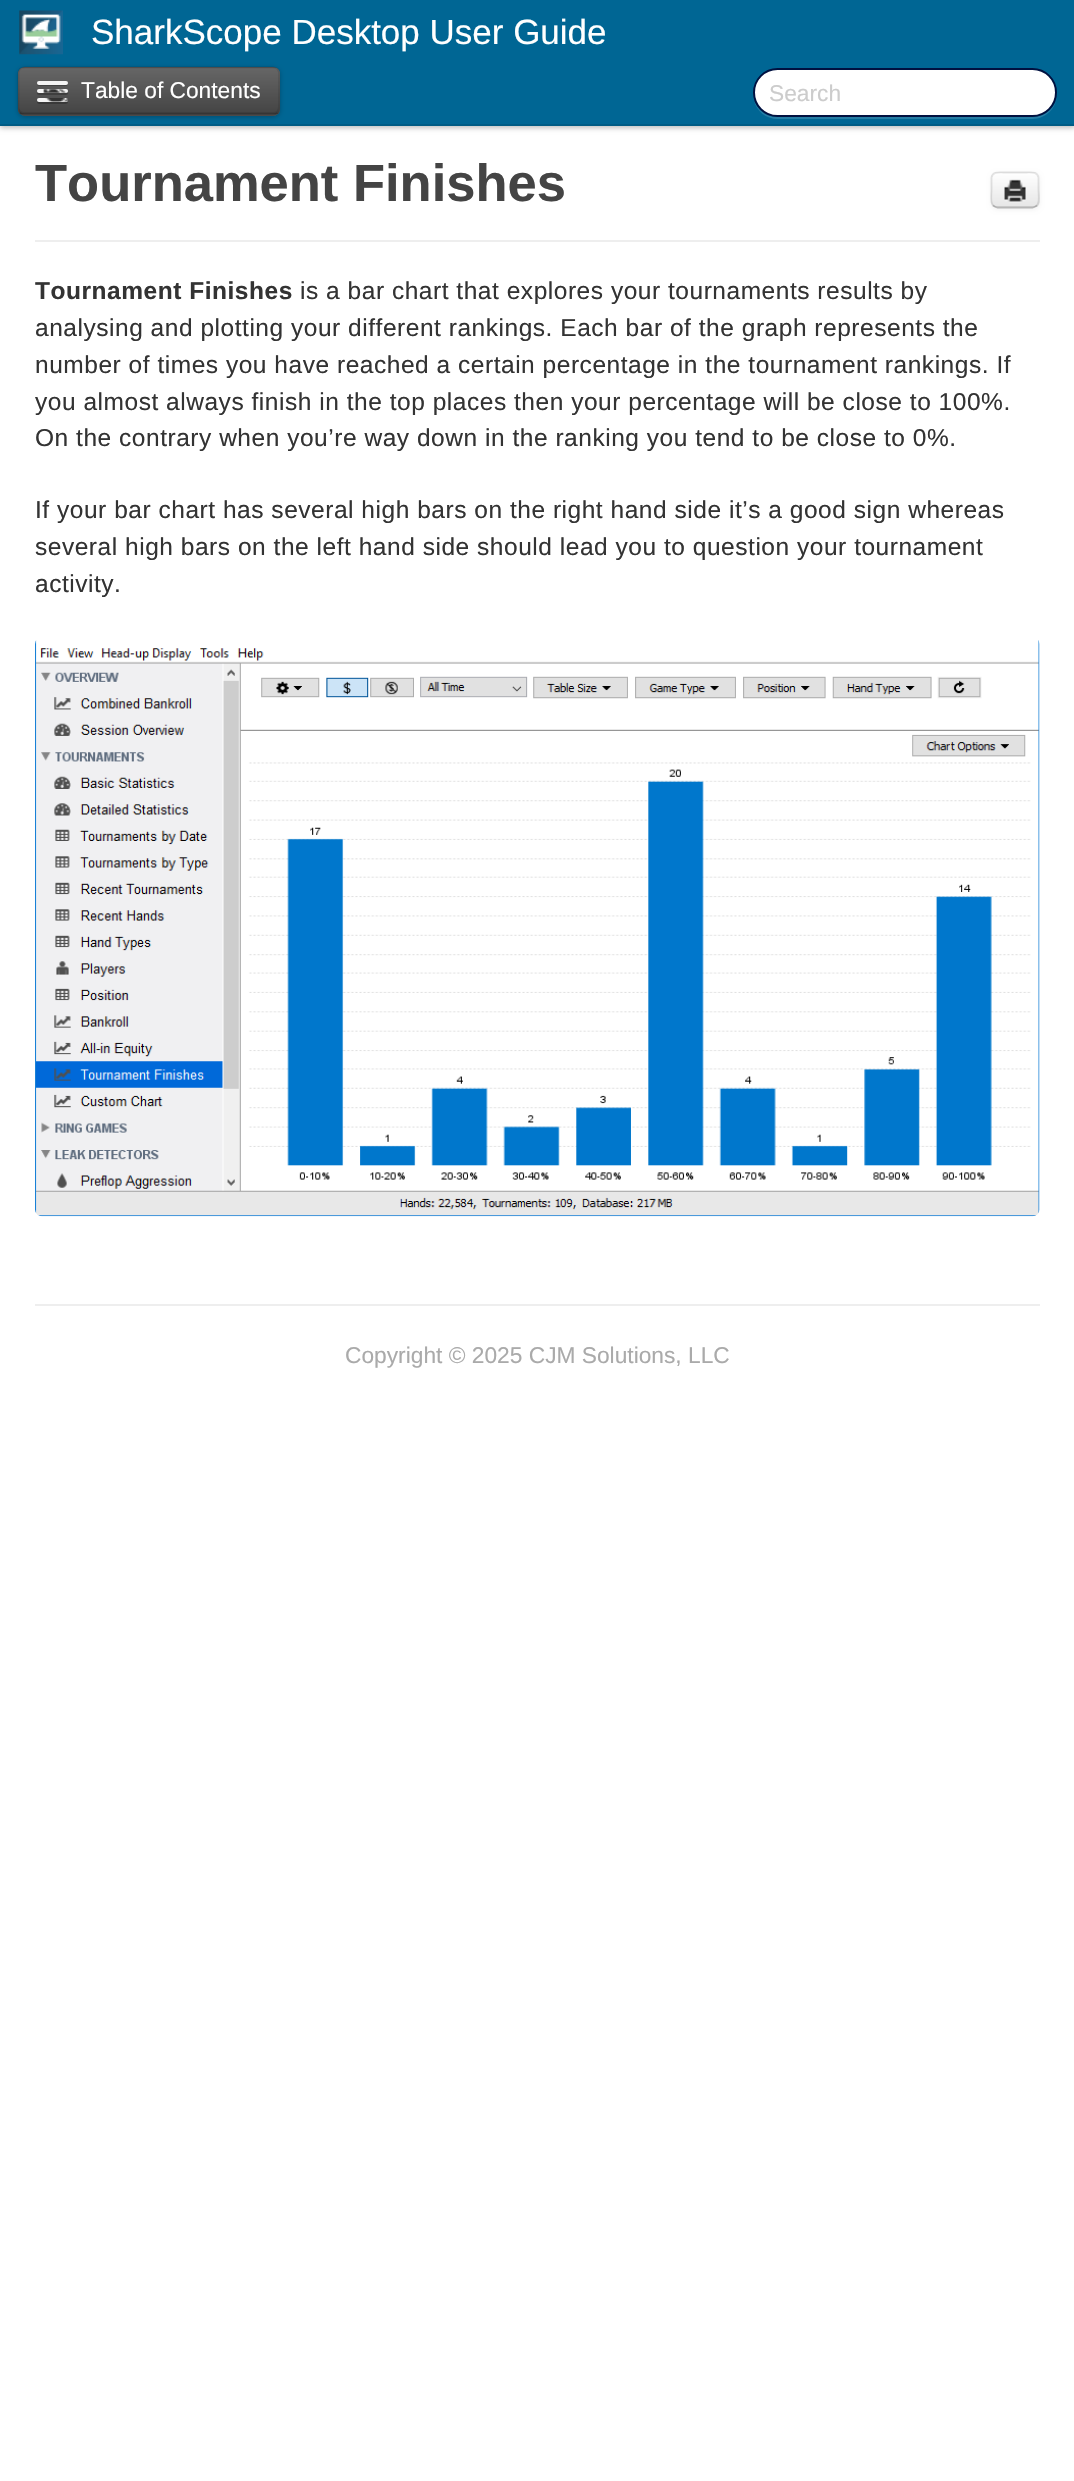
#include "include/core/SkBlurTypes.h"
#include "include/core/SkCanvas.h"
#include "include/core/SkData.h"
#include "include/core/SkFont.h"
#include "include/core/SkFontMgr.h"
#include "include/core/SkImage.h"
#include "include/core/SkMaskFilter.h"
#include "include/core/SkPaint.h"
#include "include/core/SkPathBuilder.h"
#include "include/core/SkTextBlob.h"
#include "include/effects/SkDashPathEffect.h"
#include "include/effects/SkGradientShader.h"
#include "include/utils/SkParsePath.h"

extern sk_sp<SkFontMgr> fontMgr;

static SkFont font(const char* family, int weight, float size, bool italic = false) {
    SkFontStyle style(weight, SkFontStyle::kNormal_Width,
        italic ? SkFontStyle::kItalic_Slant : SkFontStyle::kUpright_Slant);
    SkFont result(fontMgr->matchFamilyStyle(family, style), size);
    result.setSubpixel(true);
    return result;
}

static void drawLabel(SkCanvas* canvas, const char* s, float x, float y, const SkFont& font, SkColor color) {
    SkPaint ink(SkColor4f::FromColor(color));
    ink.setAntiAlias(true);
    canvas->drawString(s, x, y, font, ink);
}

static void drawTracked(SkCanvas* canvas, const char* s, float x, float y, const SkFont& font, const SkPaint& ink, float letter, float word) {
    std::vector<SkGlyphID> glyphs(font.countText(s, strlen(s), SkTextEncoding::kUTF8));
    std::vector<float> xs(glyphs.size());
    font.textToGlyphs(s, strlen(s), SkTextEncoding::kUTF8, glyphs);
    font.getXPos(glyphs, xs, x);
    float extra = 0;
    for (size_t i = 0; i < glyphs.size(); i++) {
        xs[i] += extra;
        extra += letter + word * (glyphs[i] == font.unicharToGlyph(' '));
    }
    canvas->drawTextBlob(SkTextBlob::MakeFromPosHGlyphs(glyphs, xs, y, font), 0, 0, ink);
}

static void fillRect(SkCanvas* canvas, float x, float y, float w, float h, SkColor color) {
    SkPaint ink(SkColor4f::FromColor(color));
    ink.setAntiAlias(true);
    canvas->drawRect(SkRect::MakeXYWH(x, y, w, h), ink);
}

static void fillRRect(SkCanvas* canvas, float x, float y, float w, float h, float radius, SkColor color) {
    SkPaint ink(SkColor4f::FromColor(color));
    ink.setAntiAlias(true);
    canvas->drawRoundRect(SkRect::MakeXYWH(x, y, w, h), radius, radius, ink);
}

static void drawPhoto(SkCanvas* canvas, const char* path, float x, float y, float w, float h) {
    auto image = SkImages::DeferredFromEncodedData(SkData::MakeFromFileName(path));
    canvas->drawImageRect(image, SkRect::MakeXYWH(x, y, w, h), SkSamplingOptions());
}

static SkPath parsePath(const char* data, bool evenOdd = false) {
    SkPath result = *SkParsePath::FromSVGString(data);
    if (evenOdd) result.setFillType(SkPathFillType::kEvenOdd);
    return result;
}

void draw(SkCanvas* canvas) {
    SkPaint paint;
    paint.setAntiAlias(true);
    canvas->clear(0xFFFFFFFF);
    paint.setColor(0x40000000);
    paint.setMaskFilter(SkMaskFilter::MakeBlur(kNormal_SkBlurStyle, 2.5f));
    canvas->drawRect(SkRect::MakeXYWH(0, 2, 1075, 126), paint);
    paint.setMaskFilter(nullptr);
    fillRect(canvas, 0, 0, 1074, 124, 0xFF006694);
    fillRect(canvas, 0, 124, 1074, 2, 0xFF005C85);
    drawPhoto(canvas, "assets/img1.png", 19, 10, 44, 45);
    SkFont font1 = font("Liberation Sans", 400, 35);
    drawLabel(canvas, "SharkScope Desktop User Guide", 91, 44, font1, 0xFFFFFFFF);
    paint.setMaskFilter(SkMaskFilter::MakeBlur(kNormal_SkBlurStyle, 2.5f));
    canvas->drawRoundRect(SkRect::MakeXYWH(18, 68, 262, 49), 7, 7, paint);
    paint.setMaskFilter(nullptr);
    fillRRect(canvas, 18, 67, 262, 49, 7, 0xFF555555);
    canvas->save();
    canvas->clipPath(parsePath("M25 67H273C277 67 280 70 280 74V109C280 113 277 116 273 116H25C21 116 18 113 18 109V74C18 70 21 67 25 67Z"), true);
    {
        const SkColor colors[] = {0xFF666666, 0xFF444444};
        const float stops[] = {0, 1};
        const SkPoint ends[] = {{149, 68}, {149, 114}};
        paint.setShader(SkGradientShader::MakeLinear(ends, colors, stops, 2, SkTileMode::kClamp));
        paint.setAlpha(255);
    }
    canvas->drawRect(SkRect::MakeXYWH(18, 68, 262, 46), paint);
    canvas->restore();
    paint.setShader(nullptr);
    paint.setColor(0x1A000000);
    canvas->drawPath(parsePath("M19 107V109C19 112 21 114 24 114H273C276 114 278 112 278 109V107C278 110 276 112 273 112H24C22 112 19 110 19 107Z"), paint);
    paint.setStroke(true);
    paint.setStrokeWidth(1.8f);
    paint.setColor(0x40000000);
    canvas->drawPath(parsePath("M277.5 113C276 114 274.5 114.5 273 114.5H24.5C23 114.5 21.5 114 20 113"), paint);
    paint.setColor(0x1A000000);
    canvas->drawPath(parsePath("M20 113C19 111.5 18.5 110 18.5 108.5V73.5C18.5 72 19 70.5 20 69C21.5 68 23 67.5 24.5 67.5H273C274.5 67.5 276 68 277.5 69C278.5 70.5 279 72 279 73.5V108.5C279 110 278.5 111.5 277.5 113"), paint);
    paint.setStroke(false);
    paint.setColor(0xFF434343);
    canvas->drawPath(parsePath("M37 83.5C36 87 42.5 86 43.5 86H61.5C62.5 86 69 87 68 83.5L66.5 84H38.5Z"), paint);
    fillRRect(canvas, 37, 81, 31, 4, 2, 0xFFF5F5F5);
    SkFont font2 = font("Liberation Sans", 400, 22.75f);
    drawLabel(canvas, "Table of Contents", 81, 98, font2, 0xFFFFFFFF);
    paint.setColor(0xFF3E3E3E);
    canvas->drawPath(parsePath("M37 92C35.5 96 42.5 95 43.5 95H61.5C62.5 95 69.5 96 68 92L66.5 92.5H38.5Z"), paint);
    fillRRect(canvas, 37, 89, 31, 4, 2, 0xFFF5F5F5);
    drawPhoto(canvas, "assets/img2.png", 43, 89, 24, 4);
    paint.setColor(0xFF393939);
    canvas->drawPath(parsePath("M37.5 101C35 105 43 104 43.5 104H61.5C62 104 70 105 67.5 101L66.5 101.5H38.5Z"), paint);
    fillRRect(canvas, 37, 98, 31, 4, 2, 0xFFF5F5F5);
    drawPhoto(canvas, "assets/img3.png", 45, 98, 23, 4);
    paint.setColor(0xFF267DA4);
    canvas->drawPath(parsePath("M754 100C756 111 766 119 778 119H1032C1046 119 1057 108 1057 94C1057 107 1046 117 1032 117H777C766 117 757 110 754 100Z"), paint);
    paint.setColor(0xFFFFFFFF);
    canvas->drawRoundRect(SkRect::MakeXYWH(754, 69, 302, 47), 23.5f, 23.5f, paint);
    paint.setStroke(true);
    paint.setStrokeWidth(2);
    paint.setColor(0xFF001140);
    canvas->drawRoundRect(SkRect::MakeXYWH(754, 69, 302, 47), 23.5f, 23.5f, paint);
    drawLabel(canvas, "Search", 769, 101, font2, 0xFFCCCCCC);
    fillRect(canvas, 35, 240, 1005, 2, 0xFFEEEEEE);
    SkFont font3 = font("Liberation Sans", 700, 52.5f);
    drawLabel(canvas, "Tournament Finishes", 35, 201, font3, 0xFF444444);
    paint.setStroke(false);
    paint.setColor(0x0D000000);
    paint.setMaskFilter(SkMaskFilter::MakeBlur(kNormal_SkBlurStyle, 2));
    canvas->drawRoundRect(SkRect::MakeXYWH(991, 173, 49, 37), 7, 7, paint);
    paint.setMaskFilter(nullptr);
    fillRRect(canvas, 991, 172, 49, 36, 7, 0xFFF5F5F5);
    canvas->save();
    canvas->clipPath(parsePath("M998 172H1033C1037 172 1040 175 1040 179V201C1040 205 1037 208 1033 208H998C994 208 991 205 991 201V179C991 175 994 172 998 172Z"), true);
    {
        const SkColor colors[] = {0xFFFFFFFF, 0xFFE6E6E6};
        const float stops[] = {0, 1};
        const SkPoint ends[] = {{1015, 173}, {1015, 207}};
        paint.setShader(SkGradientShader::MakeLinear(ends, colors, stops, 2, SkTileMode::kClamp));
        paint.setAlpha(255);
    }
    canvas->drawRect(SkRect::MakeXYWH(991, 173, 49, 34), paint);
    canvas->restore();
    paint.setStroke(true);
    paint.setStrokeWidth(1.8f);
    paint.setShader(nullptr);
    paint.setColor(0x40000000);
    canvas->drawPath(parsePath("M1037 205.5C1035.5 206.5 1034 207.5 1032.5 207.5H997.5C996 207.5 994.5 206.5 993 205.5"), paint);
    paint.setColor(0x1A000000);
    canvas->drawPath(parsePath("M993 205.5C990 202.5 991.5 194 991.5 190V177.5C992.5 171.5 999 172.5 1003.5 172.5H1026.5C1031 172.5 1037.5 171.5 1038.5 177.5V190C1038.5 194 1040 202.5 1037 205.5"), paint);
    drawPhoto(canvas, "assets/img4.png", 1004, 179, 22, 24);
    SkFont font4 = font("Liberation Sans", 700, 24.5f);
    paint.setStroke(false);
    paint.setColor(0xFF333333);
    drawTracked(canvas, "Tournament Finishes", 35, 299, font4, paint, 0.53f, 0);
    SkFont font5 = font("Liberation Sans", 400, 24.5f);
    drawTracked(canvas, "is a bar chart that explores your tournaments results by", 300, 299, font5, paint, 0.53f, 0);
    drawTracked(canvas, "analysing and plotting your different rankings. Each bar of the graph represents the", 35, 336, font5, paint, 0.53f, 0);
    drawTracked(canvas, "number of times you have reached a certain percentage in the tournament rankings. If", 35, 373, font5, paint, 0.53f, 0);
    drawTracked(canvas, "you almost always finish in the top places then your percentage will be close to 100%.", 35, 410, font5, paint, 0.53f, 0);
    drawTracked(canvas, "On the contrary when you’re way down in the ranking you tend to be close to 0%.", 35, 446, font5, paint, 0.53f, 0);
    drawTracked(canvas, "If your bar chart has several high bars on the right hand side it’s a good sign whereas", 35, 518, font5, paint, 0.53f, 0);
    drawTracked(canvas, "several high bars on the left hand side should lead you to question your tournament", 35, 555, font5, paint, 0.53f, 0);
    drawTracked(canvas, "activity.", 35, 592, font5, paint, 0.53f, 0);
    drawPhoto(canvas, "assets/img5.png", 35, 640, 1005, 577);
    fillRect(canvas, 35, 1304, 1005, 2, 0xFFEEEEEE);
    drawLabel(canvas, "Copyright © 2025 CJM Solutions, LLC", 345, 1363, font2, 0xFFAAAAAA);
}
